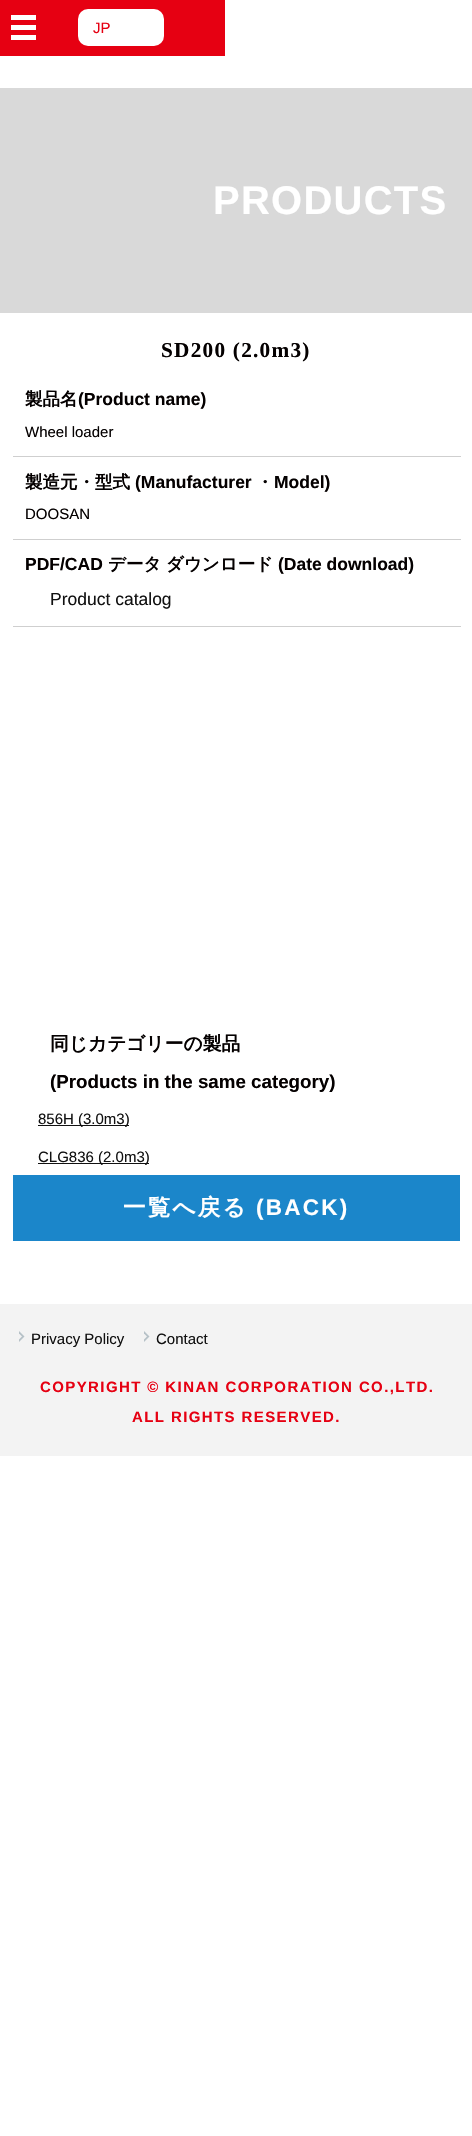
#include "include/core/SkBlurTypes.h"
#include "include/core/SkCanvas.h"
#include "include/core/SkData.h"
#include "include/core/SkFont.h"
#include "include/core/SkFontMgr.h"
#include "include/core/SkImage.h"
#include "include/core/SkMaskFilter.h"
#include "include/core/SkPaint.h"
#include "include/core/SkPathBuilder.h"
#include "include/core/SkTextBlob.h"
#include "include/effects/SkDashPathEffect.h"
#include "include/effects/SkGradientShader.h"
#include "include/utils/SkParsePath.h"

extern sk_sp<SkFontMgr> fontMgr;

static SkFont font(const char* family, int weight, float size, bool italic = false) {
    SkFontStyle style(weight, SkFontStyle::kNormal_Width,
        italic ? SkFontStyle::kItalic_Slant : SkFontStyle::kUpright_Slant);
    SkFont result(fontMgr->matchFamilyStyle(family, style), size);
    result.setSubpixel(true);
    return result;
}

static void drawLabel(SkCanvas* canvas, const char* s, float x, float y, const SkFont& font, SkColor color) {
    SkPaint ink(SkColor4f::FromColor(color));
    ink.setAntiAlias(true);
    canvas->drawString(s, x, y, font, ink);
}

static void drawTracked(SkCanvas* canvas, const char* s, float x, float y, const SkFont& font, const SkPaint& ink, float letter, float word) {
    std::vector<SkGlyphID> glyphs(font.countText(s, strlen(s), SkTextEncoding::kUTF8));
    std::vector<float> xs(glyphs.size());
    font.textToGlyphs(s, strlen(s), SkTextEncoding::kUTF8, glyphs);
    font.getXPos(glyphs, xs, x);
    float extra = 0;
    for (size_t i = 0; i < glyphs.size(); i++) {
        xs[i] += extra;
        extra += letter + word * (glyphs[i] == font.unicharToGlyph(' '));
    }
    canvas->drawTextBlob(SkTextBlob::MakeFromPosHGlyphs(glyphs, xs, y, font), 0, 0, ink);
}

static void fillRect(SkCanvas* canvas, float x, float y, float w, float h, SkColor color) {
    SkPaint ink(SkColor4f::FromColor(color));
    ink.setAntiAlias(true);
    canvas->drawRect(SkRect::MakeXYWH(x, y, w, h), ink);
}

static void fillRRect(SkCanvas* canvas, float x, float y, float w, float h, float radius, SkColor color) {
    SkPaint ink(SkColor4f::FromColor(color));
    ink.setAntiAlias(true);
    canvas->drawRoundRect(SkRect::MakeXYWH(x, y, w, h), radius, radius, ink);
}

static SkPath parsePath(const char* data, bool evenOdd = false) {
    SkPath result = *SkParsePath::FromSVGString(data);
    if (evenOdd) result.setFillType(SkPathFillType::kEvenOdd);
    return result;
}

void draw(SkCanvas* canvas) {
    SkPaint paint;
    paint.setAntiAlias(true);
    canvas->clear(0xFFFFFFFF);
    fillRect(canvas, 0, 0, 225, 56, 0xFFE60012);
    fillRect(canvas, 11, 15, 25, 5, 0xFFFFFFFF);
    fillRect(canvas, 11, 25, 25, 5, 0xFFFFFFFF);
    fillRect(canvas, 11, 35, 25, 5, 0xFFFFFFFF);
    fillRRect(canvas, 78, 9, 86, 37, 10, 0xFFFFFFFF);
    SkFont font1 = font("Liberation Sans", 400, 15);
    drawLabel(canvas, "JP", 93, 33, font1, 0xFFE60012);
    fillRect(canvas, 0, 88, 472, 225, 0xFFD9D9D9);
    SkFont font2 = font("Liberation Sans", 700, 40);
    paint.setColor(0xFFFFFFFF);
    drawTracked(canvas, "PRODUCTS", 213, 214, font2, paint, 1.25f, 0);
    SkFont font3 = font("Liberation Serif", 700, 21.25f);
    paint.setColor(0xFF040000);
    drawTracked(canvas, "SD200 (2.0m3)", 161, 357, font3, paint, 1.25f, 0);
    fillRect(canvas, 13, 456, 448, 1, 0xFFCFCFCF);
    SkFont font4 = font("WenQuanYi Zen Hei", 700, 17.5f);
    drawLabel(canvas, "製品名", 25, 405, font4, 0xFF040000);
    SkFont font5 = font("Liberation Sans", 700, 17.5f);
    drawLabel(canvas, "(Product name)", 78, 405, font5, 0xFF040000);
    drawLabel(canvas, "Wheel loader", 25, 437, font1, 0xFF040000);
    fillRect(canvas, 13, 539, 448, 1, 0xFFCFCFCF);
    drawLabel(canvas, "製造元・型式", 25, 488, font4, 0xFF040000);
    drawLabel(canvas, "(Manufacturer", 135, 488, font5, 0xFF040000);
    drawLabel(canvas, "・", 256, 488, font4, 0xFF040000);
    drawLabel(canvas, "Model)", 274, 488, font5, 0xFF040000);
    drawLabel(canvas, "DOOSAN", 25, 519, font1, 0xFF040000);
    fillRect(canvas, 13, 626, 448, 1, 0xFFCFCFCF);
    drawLabel(canvas, "PDF/CAD", 25, 570, font5, 0xFF040000);
    drawLabel(canvas, "データ", 108, 570, font4, 0xFF040000);
    drawLabel(canvas, "ダウンロード", 166, 570, font4, 0xFF040000);
    drawLabel(canvas, "(Date download)", 278, 570, font5, 0xFF040000);
    SkFont font6 = font("Liberation Sans", 400, 17.5f);
    drawLabel(canvas, "Product catalog", 50, 605, font6, 0xFF111111);
    SkFont font7 = font("WenQuanYi Zen Hei", 700, 18.75f);
    drawLabel(canvas, "同じカテゴリーの製品", 50, 1050, font7, 0xFF040000);
    SkFont font8 = font("Liberation Sans", 700, 18.75f);
    drawLabel(canvas, "(Products in the same category)", 50, 1088, font8, 0xFF040000);
    fillRect(canvas, 38, 1125, 91, 1, 0xFF111111);
    drawLabel(canvas, "856H (3.0m3)", 38, 1124, font1, 0xFF111111);
    fillRect(canvas, 38, 1163, 111, 1, 0xFF111111);
    drawLabel(canvas, "CLG836 (2.0m3)", 38, 1162, font1, 0xFF111111);
    fillRect(canvas, 13, 1175, 447, 66, 0xFF1B86CA);
    SkFont font9 = font("WenQuanYi Zen Hei", 700, 22.5f);
    paint.setColor(0xFFFFFFFF);
    drawTracked(canvas, "一覧へ戻る", 123, 1215, font9, paint, 2.25f, 0);
    SkFont font10 = font("Liberation Sans", 700, 22.5f);
    drawTracked(canvas, "(BACK)", 256, 1215, font10, paint, 2.25f, 0);
    fillRect(canvas, 0, 1304, 472, 152, 0xFFF3F3F3);
    canvas->save();
    canvas->clipRect(SkRect::MakeXYWH(19, 1323, 125, 30));
    paint.setColor(0xFFB6C1C7);
    canvas->drawPath(parsePath("M17.5 1329.5L24.5 1336.5L17.5 1343.5L10.5 1336.5Z"), paint);
    paint.setColor(0xFFF3F3F3);
    canvas->drawPath(parsePath("M15 1329.5L22 1336.5L15 1343.5L8 1336.5Z"), paint);
    canvas->restore();
    drawLabel(canvas, "Privacy Policy", 31, 1344, font1, 0xFF111111);
    canvas->save();
    canvas->clipRect(SkRect::MakeXYWH(144, 1323, 125, 30));
    paint.setColor(0xFFB6C1C7);
    canvas->drawPath(parsePath("M142.5 1329.5L149.5 1336.5L142.5 1343.5L135.5 1336.5Z"), paint);
    paint.setColor(0xFFF3F3F3);
    canvas->drawPath(parsePath("M140 1329.5L147 1336.5L140 1343.5L133 1336.5Z"), paint);
    canvas->restore();
    drawLabel(canvas, "Contact", 156, 1344, font1, 0xFF111111);
    SkFont font11 = font("Liberation Sans", 700, 15);
    paint.setColor(0xFFE60012);
    drawTracked(canvas, "COPYRIGHT © KINAN CORPORATION CO.,LTD.", 40, 1392, font11, paint, 1.4f, 0);
    drawTracked(canvas, "ALL RIGHTS RESERVED.", 132, 1422, font11, paint, 1.4f, 0);
}
